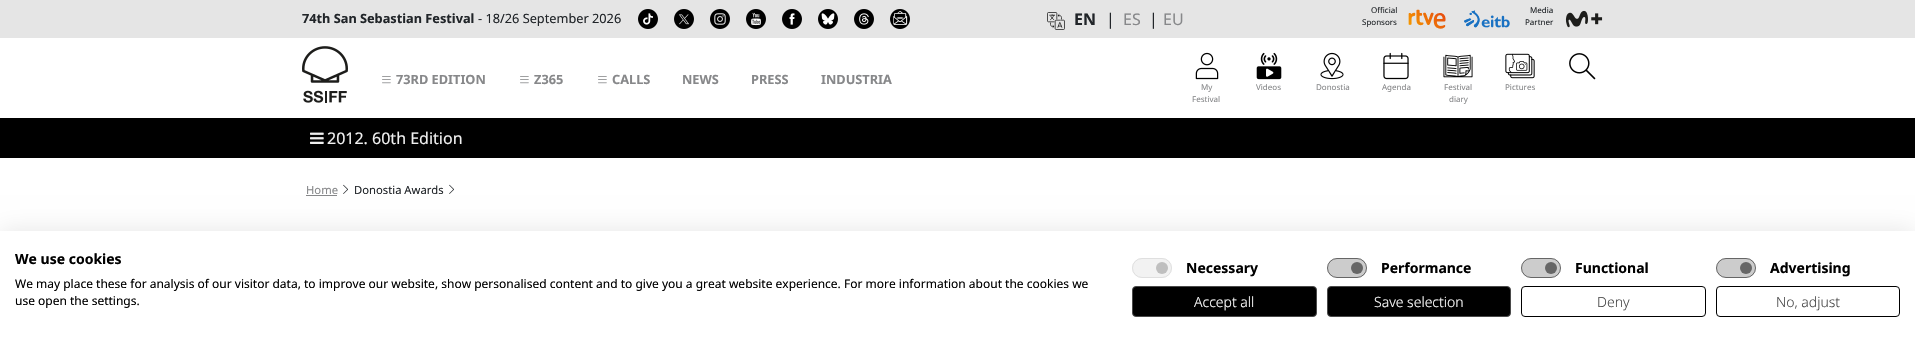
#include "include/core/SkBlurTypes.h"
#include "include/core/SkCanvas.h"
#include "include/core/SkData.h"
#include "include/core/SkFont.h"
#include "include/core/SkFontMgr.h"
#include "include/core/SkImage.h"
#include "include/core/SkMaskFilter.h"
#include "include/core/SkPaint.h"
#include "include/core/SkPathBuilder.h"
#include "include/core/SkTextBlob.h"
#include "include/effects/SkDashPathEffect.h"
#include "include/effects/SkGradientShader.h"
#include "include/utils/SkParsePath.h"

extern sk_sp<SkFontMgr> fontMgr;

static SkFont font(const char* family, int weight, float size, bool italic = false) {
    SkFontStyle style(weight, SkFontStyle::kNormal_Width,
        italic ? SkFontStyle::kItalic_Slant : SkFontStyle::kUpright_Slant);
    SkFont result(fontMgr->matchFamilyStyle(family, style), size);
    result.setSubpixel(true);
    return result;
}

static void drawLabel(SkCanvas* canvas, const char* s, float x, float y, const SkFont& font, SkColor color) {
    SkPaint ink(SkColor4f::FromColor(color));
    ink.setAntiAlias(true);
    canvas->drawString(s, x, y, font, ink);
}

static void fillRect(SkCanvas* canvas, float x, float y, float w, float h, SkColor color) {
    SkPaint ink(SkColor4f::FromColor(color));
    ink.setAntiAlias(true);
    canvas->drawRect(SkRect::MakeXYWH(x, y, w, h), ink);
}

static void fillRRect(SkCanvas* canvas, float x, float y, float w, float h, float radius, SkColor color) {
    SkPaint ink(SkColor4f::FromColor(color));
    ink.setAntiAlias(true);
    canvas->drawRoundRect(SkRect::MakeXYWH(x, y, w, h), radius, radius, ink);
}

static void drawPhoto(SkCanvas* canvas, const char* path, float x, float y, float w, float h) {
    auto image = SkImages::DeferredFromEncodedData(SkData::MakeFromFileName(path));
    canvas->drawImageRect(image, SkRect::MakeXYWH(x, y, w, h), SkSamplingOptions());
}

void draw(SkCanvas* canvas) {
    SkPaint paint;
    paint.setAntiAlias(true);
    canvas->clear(0xFFFFFFFF);
    fillRect(canvas, 0, 0, 1915, 38, 0xFFE5E5E5);
    SkFont font1 = font("Noto Sans", 700, 12.75f);
    drawLabel(canvas, "74th San Sebastian Festival", 302, 23, font1, 0xFF212529);
    SkFont font2 = font("Noto Sans", 400, 12.75f);
    drawLabel(canvas, "- 18/26 September 2026", 478, 23, font2, 0xFF212529);
    drawPhoto(canvas, "assets/img1.png", 638, 9, 20, 20);
    drawPhoto(canvas, "assets/img2.png", 674, 9, 20, 20);
    drawPhoto(canvas, "assets/img3.png", 710, 9, 20, 20);
    drawPhoto(canvas, "assets/img4.png", 746, 9, 20, 20);
    drawPhoto(canvas, "assets/img5.png", 782, 9, 20, 20);
    drawPhoto(canvas, "assets/img6.png", 818, 9, 20, 20);
    drawPhoto(canvas, "assets/img7.png", 854, 9, 20, 20);
    drawPhoto(canvas, "assets/img8.png", 890, 9, 20, 20);
    drawPhoto(canvas, "assets/img9.png", 1047, 12, 18, 18);
    SkFont font3 = font("Noto Sans", 700, 16);
    drawLabel(canvas, "EN", 1074, 25, font3, 0xFF212529);
    SkFont font4 = font("Noto Sans", 400, 16);
    drawLabel(canvas, "|", 1106, 25, font4, 0xFF212529);
    drawLabel(canvas, "ES", 1123, 25, font4, 0xFF87888A);
    drawLabel(canvas, "|", 1149, 25, font4, 0xFF212529);
    drawLabel(canvas, "EU", 1163, 25, font4, 0xFF87888A);
    SkFont font5 = font("Noto Sans", 400, 8);
    drawLabel(canvas, "Official", 1371, 13, font5, 0xFF212529);
    drawLabel(canvas, "Sponsors", 1362, 25, font5, 0xFF212529);
    drawPhoto(canvas, "assets/img10.png", 1408, 9, 38, 20);
    drawPhoto(canvas, "assets/img11.png", 1464, 10, 46, 18);
    drawLabel(canvas, "Media", 1530, 13, font5, 0xFF212529);
    drawLabel(canvas, "Partner", 1525, 25, font5, 0xFF212529);
    drawPhoto(canvas, "assets/img12.png", 1565, 10, 38, 18);
    drawPhoto(canvas, "assets/img13.png", 302, 46, 46, 57);
    drawPhoto(canvas, "assets/img14.png", 382, 76, 9, 8);
    drawLabel(canvas, "73RD EDITION", 396, 84, font1, 0xFF87888A);
    drawPhoto(canvas, "assets/img14.png", 520, 76, 9, 8);
    drawLabel(canvas, "Z365", 534, 84, font1, 0xFF87888A);
    drawPhoto(canvas, "assets/img14.png", 598, 76, 9, 8);
    drawLabel(canvas, "CALLS", 612, 84, font1, 0xFF87888A);
    drawLabel(canvas, "NEWS", 682, 84, font1, 0xFF87888A);
    drawLabel(canvas, "PRESS", 751, 84, font1, 0xFF87888A);
    drawLabel(canvas, "INDUSTRIA", 821, 84, font1, 0xFF87888A);
    drawPhoto(canvas, "assets/img15.png", 1569, 53, 27, 27);
    drawPhoto(canvas, "assets/img16.png", 1195, 52, 24, 28);
    drawLabel(canvas, "My", 1201, 90, font5, 0xFF87888A);
    drawLabel(canvas, "Festival", 1192, 102, font5, 0xFF87888A);
    drawPhoto(canvas, "assets/img17.png", 1256, 52, 26, 28);
    drawLabel(canvas, "Videos", 1256, 90, font5, 0xFF87888A);
    drawPhoto(canvas, "assets/img18.png", 1320, 52, 24, 28);
    drawLabel(canvas, "Donostia", 1316, 90, font5, 0xFF87888A);
    drawPhoto(canvas, "assets/img19.png", 1383, 52, 26, 28);
    drawLabel(canvas, "Agenda", 1382, 90, font5, 0xFF87888A);
    drawPhoto(canvas, "assets/img20.png", 1443, 54, 30, 24);
    drawLabel(canvas, "Festival", 1444, 90, font5, 0xFF87888A);
    drawLabel(canvas, "diary", 1449, 102, font5, 0xFF87888A);
    drawPhoto(canvas, "assets/img21.png", 1505, 53, 30, 26);
    drawLabel(canvas, "Pictures", 1505, 90, font5, 0xFF87888A);
    fillRect(canvas, 0, 118, 1915, 40, 0xFF000000);
    drawPhoto(canvas, "assets/img22.png", 310, 132, 14, 12);
    drawLabel(canvas, "2012. 60th Edition", 327, 144, font4, 0xFFF0F0F0);
    SkFont font6 = font("Noto Sans", 400, 11.25f);
    drawLabel(canvas, "Home", 306, 194, font6, 0xFF87888A);
    fillRect(canvas, 306, 195, 31, 1, 0xFF87888A);
    drawPhoto(canvas, "assets/img23.png", 343, 184, 5, 10);
    drawLabel(canvas, "Donostia Awards", 354, 194, font6, 0xFF212529);
    drawPhoto(canvas, "assets/img23.png", 449, 184, 5, 10);
    paint.setColor(0x1A000000);
    paint.setMaskFilter(SkMaskFilter::MakeBlur(kNormal_SkBlurStyle, 12));
    canvas->drawRect(SkRect::MakeXYWH(0, 231, 1915, 113), paint);
    paint.setMaskFilter(nullptr);
    fillRect(canvas, 0, 231, 1915, 113, 0xFFFFFFFF);
    SkFont font7 = font("Noto Sans", 700, 14);
    drawLabel(canvas, "We use cookies", 15, 264, font7, 0xFF000000);
    SkFont font8 = font("Noto Sans", 400, 12);
    drawLabel(canvas, "We may place these for analysis of our visitor data, to improve our website, show personalised content and to give you a great website experience. For more information about the cookies we", 15, 288, font8, 0xFF000000);
    drawLabel(canvas, "use open the settings.", 15, 305, font8, 0xFF000000);
    fillRRect(canvas, 1132, 258, 40, 20, 10, 0xFFF2F2F2);
    paint.setColor(0xFFBFBFBF);
    canvas->drawCircle(1162, 268, 6, paint);
    paint.setStroke(true);
    paint.setStrokeWidth(1);
    paint.setColor(0xFFDFDFDF);
    canvas->drawRoundRect(SkRect::MakeXYWH(1132.5f, 258.5f, 39, 19), 9.5f, 9.5f, paint);
    drawLabel(canvas, "Necessary", 1186, 273, font7, 0xFF000000);
    fillRRect(canvas, 1327, 258, 40, 20, 10, 0xFFCCCCCC);
    paint.setStroke(false);
    paint.setColor(0xFF666666);
    canvas->drawCircle(1357, 268, 6, paint);
    paint.setStroke(true);
    paint.setColor(0x80000000);
    canvas->drawRoundRect(SkRect::MakeXYWH(1327.5f, 258.5f, 39, 19), 9.5f, 9.5f, paint);
    drawLabel(canvas, "Performance", 1381, 273, font7, 0xFF000000);
    fillRRect(canvas, 1521, 258, 40, 20, 10, 0xFFCCCCCC);
    paint.setStroke(false);
    paint.setColor(0xFF666666);
    canvas->drawCircle(1551, 268, 6, paint);
    paint.setStroke(true);
    paint.setColor(0x80000000);
    canvas->drawRoundRect(SkRect::MakeXYWH(1521.5f, 258.5f, 39, 19), 9.5f, 9.5f, paint);
    drawLabel(canvas, "Functional", 1575, 273, font7, 0xFF000000);
    fillRRect(canvas, 1716, 258, 40, 20, 10, 0xFFCCCCCC);
    paint.setStroke(false);
    paint.setColor(0xFF666666);
    canvas->drawCircle(1746, 268, 6, paint);
    paint.setStroke(true);
    paint.setColor(0x80000000);
    canvas->drawRoundRect(SkRect::MakeXYWH(1716.5f, 258.5f, 39, 19), 9.5f, 9.5f, paint);
    drawLabel(canvas, "Advertising", 1770, 273, font7, 0xFF000000);
    paint.setStroke(false);
    paint.setColor(0xFF000000);
    canvas->drawRoundRect(SkRect::MakeXYWH(1132.5f, 286.5f, 184, 30), 3.5f, 3.5f, paint);
    paint.setStroke(true);
    paint.setColor(0xFF4A4A4A);
    canvas->drawRoundRect(SkRect::MakeXYWH(1132.5f, 286.5f, 184, 30), 3.5f, 3.5f, paint);
    SkFont font9 = font("Noto Sans", 300, 14);
    drawLabel(canvas, "Accept all", 1194, 307, font9, 0xFFFFFFFF);
    paint.setStroke(false);
    paint.setColor(0xFF000000);
    canvas->drawRoundRect(SkRect::MakeXYWH(1327.5f, 286.5f, 183, 30), 3.5f, 3.5f, paint);
    paint.setStroke(true);
    paint.setColor(0xFF4A4A4A);
    canvas->drawRoundRect(SkRect::MakeXYWH(1327.5f, 286.5f, 183, 30), 3.5f, 3.5f, paint);
    drawLabel(canvas, "Save selection", 1374, 307, font9, 0xFFFFFFFF);
    paint.setColor(0xFF000000);
    canvas->drawRoundRect(SkRect::MakeXYWH(1521.5f, 286.5f, 184, 30), 3.5f, 3.5f, paint);
    drawLabel(canvas, "Deny", 1597, 307, font9, 0xFF4A4A4A);
    canvas->drawRoundRect(SkRect::MakeXYWH(1716.5f, 286.5f, 183, 30), 3.5f, 3.5f, paint);
    drawLabel(canvas, "No, adjust", 1776, 307, font9, 0xFF4A4A4A);
}
